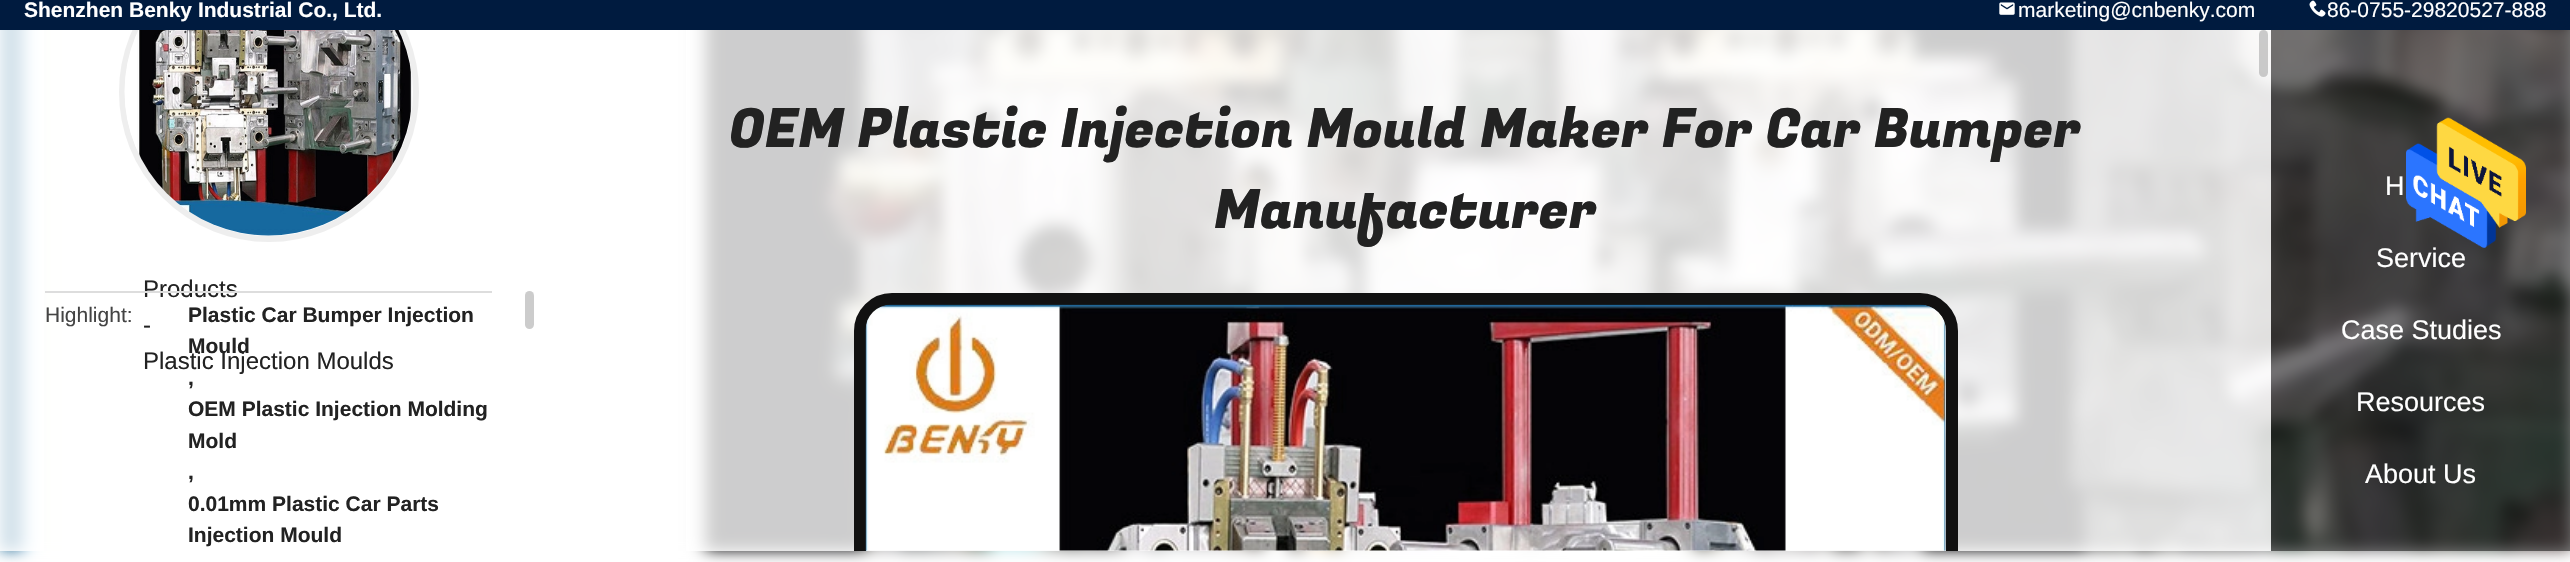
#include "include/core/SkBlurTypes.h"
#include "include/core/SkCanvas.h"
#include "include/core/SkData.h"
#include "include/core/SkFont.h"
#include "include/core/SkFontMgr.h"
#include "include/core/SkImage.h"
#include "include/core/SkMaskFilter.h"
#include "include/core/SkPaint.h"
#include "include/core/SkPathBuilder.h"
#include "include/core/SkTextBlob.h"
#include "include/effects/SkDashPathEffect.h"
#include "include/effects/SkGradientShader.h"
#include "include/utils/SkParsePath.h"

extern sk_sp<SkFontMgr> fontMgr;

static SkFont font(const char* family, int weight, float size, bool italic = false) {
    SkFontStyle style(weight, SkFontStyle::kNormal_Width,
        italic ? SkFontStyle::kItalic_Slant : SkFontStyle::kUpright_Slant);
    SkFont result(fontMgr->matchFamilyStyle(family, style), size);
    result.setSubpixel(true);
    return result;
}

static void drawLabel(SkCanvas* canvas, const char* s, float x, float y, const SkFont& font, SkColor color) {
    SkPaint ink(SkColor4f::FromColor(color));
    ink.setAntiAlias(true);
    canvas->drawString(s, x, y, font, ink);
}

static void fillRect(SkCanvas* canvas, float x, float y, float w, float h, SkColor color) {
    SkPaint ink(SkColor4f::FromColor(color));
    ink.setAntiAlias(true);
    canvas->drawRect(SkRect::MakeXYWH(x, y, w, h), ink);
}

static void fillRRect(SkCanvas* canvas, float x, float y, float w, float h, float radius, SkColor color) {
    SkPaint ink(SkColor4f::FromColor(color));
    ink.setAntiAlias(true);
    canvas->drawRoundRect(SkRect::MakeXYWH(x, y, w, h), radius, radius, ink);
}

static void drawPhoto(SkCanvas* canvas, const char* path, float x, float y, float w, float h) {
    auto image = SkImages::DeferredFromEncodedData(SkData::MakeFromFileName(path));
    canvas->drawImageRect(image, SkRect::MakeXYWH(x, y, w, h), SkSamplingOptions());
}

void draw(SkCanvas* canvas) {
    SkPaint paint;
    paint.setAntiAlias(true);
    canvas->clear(0xFFFFFFFF);
    drawPhoto(canvas, "assets/img3.png", 0, 30, 2570, 532);
    paint.setStroke(true);
    paint.setStrokeWidth(6);
    paint.setColor(0xFFEEEEEE);
    canvas->drawCircle(269, 92, 147, paint);
    fillRect(canvas, 0, 0, 2570, 30, 0xFF001B3F);
    SkFont font1 = font("Liberation Sans", 700, 21);
    drawLabel(canvas, "Shenzhen Benky Industrial Co., Ltd.", 24, 17, font1, 0xFFFFFFFF);
    drawPhoto(canvas, "assets/img1.png", 1999, 2, 16, 13);
    SkFont font2 = font("Liberation Sans", 400, 21);
    drawLabel(canvas, "marketing@cnbenky.com", 2018, 17, font2, 0xFFFFFFFF);
    drawPhoto(canvas, "assets/img2.png", 2309, 0, 17, 17);
    drawLabel(canvas, "86-0755-29820527-888", 2327, 17, font2, 0xFFFFFFFF);
    fillRect(canvas, 0, 30, 44, 521, 0xCCFFFFFF);
    drawPhoto(canvas, "assets/img4.png", 124, 30, 288, 206);
    SkFont font3 = font("Liberation Sans", 400, 24);
    drawLabel(canvas, "Products", 143, 297, font3, 0xFF222222);
    drawLabel(canvas, "-", 143, 333, font3, 0xFF222222);
    drawLabel(canvas, "Plastic Injection Moulds", 143, 369, font3, 0xFF222222);
    fillRect(canvas, 45, 291, 447, 2, 0xFFDDDDDD);
    drawLabel(canvas, "Highlight:", 45, 322, font2, 0xFF444444);
    drawLabel(canvas, "Plastic Car Bumper Injection", 188, 322, font1, 0xFF222222);
    drawLabel(canvas, "Mould", 188, 353, font1, 0xFF222222);
    drawLabel(canvas, ",", 188, 385, font1, 0xFF222222);
    drawLabel(canvas, "OEM Plastic Injection Molding", 188, 416, font1, 0xFF222222);
    drawLabel(canvas, "Mold", 188, 448, font1, 0xFF222222);
    drawLabel(canvas, ",", 188, 479, font1, 0xFF222222);
    drawLabel(canvas, "0.01mm Plastic Car Parts", 188, 511, font1, 0xFF222222);
    drawLabel(canvas, "Injection Mould", 188, 542, font1, 0xFF222222);
    fillRRect(canvas, 525, 291, 9, 38, 4.5f, 0xFFCCCCCC);
    fillRect(canvas, 686, 30, 1585, 521, 0xCCFFFFFF);
    fillRRect(canvas, 2259, 30, 9, 47, 4.5f, 0x99AAAAAA);
    SkFont font4 = font("Fugaz One", 400, 54);
    drawLabel(canvas, "OEM Plastic Injection Mould Maker For Car Bumper", 729, 147, font4, 0xFF222222);
    drawLabel(canvas, "Manufacturer", 1214, 228, font4, 0xFF222222);
    canvas->save();
    canvas->clipRect(SkRect::MakeXYWH(540, 30, 1731, 521));
    paint.setStrokeWidth(12);
    paint.setColor(0xFF111111);
    canvas->drawRoundRect(SkRect::MakeXYWH(860, 299, 1092, 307), 32, 32, paint);
    canvas->restore();
    drawPhoto(canvas, "assets/img5.png", 865, 304, 1081, 247);
    fillRect(canvas, 2271, 30, 299, 521, 0x80000000);
    SkFont font5 = font("Liberation Sans", 400, 27);
    drawLabel(canvas, "H", 2385, 195, font5, 0xFFFFFFFF);
    drawLabel(canvas, "Service", 2376, 267, font5, 0xFFFFFFFF);
    drawLabel(canvas, "Case Studies", 2341, 339, font5, 0xFFFFFFFF);
    drawLabel(canvas, "Resources", 2356, 411, font5, 0xFFFFFFFF);
    drawLabel(canvas, "About Us", 2365, 483, font5, 0xFFFFFFFF);
    drawPhoto(canvas, "assets/img6.png", 2406, 117, 120, 131);
}
